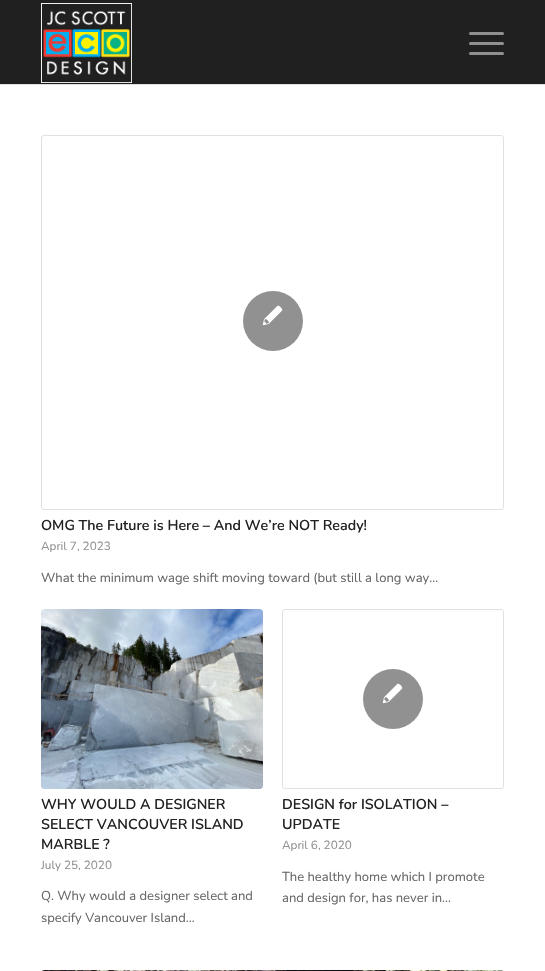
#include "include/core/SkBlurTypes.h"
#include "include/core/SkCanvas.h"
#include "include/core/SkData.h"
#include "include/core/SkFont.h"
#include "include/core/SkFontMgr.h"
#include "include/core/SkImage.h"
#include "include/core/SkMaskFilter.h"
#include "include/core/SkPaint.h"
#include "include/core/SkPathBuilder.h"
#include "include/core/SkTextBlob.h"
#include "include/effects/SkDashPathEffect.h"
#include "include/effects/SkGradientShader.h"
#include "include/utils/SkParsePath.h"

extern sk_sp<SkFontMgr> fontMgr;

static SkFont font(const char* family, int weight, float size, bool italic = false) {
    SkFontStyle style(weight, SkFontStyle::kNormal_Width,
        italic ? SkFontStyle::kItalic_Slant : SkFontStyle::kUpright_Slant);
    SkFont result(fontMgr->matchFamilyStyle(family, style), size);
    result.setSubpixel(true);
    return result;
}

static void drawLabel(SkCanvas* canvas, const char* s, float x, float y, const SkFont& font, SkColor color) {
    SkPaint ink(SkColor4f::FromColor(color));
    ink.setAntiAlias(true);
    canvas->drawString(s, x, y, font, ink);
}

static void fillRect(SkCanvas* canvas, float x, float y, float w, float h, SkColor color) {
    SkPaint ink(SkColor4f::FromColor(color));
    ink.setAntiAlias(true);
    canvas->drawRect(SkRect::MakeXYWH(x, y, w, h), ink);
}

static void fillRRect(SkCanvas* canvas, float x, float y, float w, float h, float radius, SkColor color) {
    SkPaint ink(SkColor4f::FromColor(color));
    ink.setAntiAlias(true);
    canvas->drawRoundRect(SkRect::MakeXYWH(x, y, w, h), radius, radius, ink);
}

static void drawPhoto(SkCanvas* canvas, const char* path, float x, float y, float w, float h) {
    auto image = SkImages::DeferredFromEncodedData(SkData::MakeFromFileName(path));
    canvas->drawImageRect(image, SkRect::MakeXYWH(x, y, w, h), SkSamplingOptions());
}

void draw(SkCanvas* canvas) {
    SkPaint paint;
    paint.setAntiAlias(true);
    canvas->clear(0xFFFFFFFF);
    fillRect(canvas, 0, 0, 545, 84, 0xFF202020);
    drawPhoto(canvas, "assets/img1.png", 41, 3, 91, 80);
    fillRRect(canvas, 469, 42, 35, 3, 1.5f, 0xFF909090);
    fillRRect(canvas, 469, 32, 35, 3, 1.5f, 0xFF909090);
    fillRRect(canvas, 469, 52, 35, 3, 1.5f, 0xFF909090);
    fillRect(canvas, 0, 84, 545, 1, 0xFFE1E1E1);
    paint.setStroke(true);
    paint.setStrokeWidth(1);
    paint.setColor(0xFFE1E1E1);
    canvas->drawRoundRect(SkRect::MakeXYWH(41.5f, 135.5f, 462, 374), 2.5f, 2.5f, paint);
    paint.setStroke(false);
    paint.setColor(0xFF919191);
    canvas->drawCircle(273, 321, 30, paint);
    drawPhoto(canvas, "assets/img2.png", 262, 305, 21, 21);
    SkFont font1 = font("Nunito", 600, 14.3f);
    drawLabel(canvas, "OMG The Future is Here – And We’re NOT Ready!", 41, 530, font1, 0xFF222222);
    SkFont font2 = font("Nunito", 400, 11.75f);
    drawLabel(canvas, "April 7, 2023", 41, 550, font2, 0xFF919191);
    SkFont font3 = font("Nunito", 400, 13);
    drawLabel(canvas, "What the minimum wage shift moving toward (but still a long way…", 41, 582, font3, 0xFF666666);
    drawPhoto(canvas, "assets/img3.png", 41, 609, 222, 180);
    drawLabel(canvas, "WHY WOULD A DESIGNER", 41, 809, font1, 0xFF222222);
    drawLabel(canvas, "SELECT VANCOUVER ISLAND", 41, 829, font1, 0xFF222222);
    drawLabel(canvas, "MARBLE ?", 41, 849, font1, 0xFF222222);
    drawLabel(canvas, "July 25, 2020", 41, 869, font2, 0xFF919191);
    drawLabel(canvas, "Q. Why would a designer select and", 41, 900, font3, 0xFF666666);
    drawLabel(canvas, "specify Vancouver Island…", 41, 922, font3, 0xFF666666);
    paint.setStroke(true);
    paint.setColor(0xFFE1E1E1);
    canvas->drawRoundRect(SkRect::MakeXYWH(282.5f, 609.5f, 221, 179), 2.5f, 2.5f, paint);
    paint.setStroke(false);
    paint.setColor(0xFF919191);
    canvas->drawCircle(393, 699, 30, paint);
    drawPhoto(canvas, "assets/img2.png", 382, 683, 21, 21);
    drawLabel(canvas, "DESIGN for ISOLATION –", 282, 809, font1, 0xFF222222);
    drawLabel(canvas, "UPDATE", 282, 829, font1, 0xFF222222);
    drawLabel(canvas, "April 6, 2020", 282, 849, font2, 0xFF919191);
    drawLabel(canvas, "The healthy home which I promote", 282, 881, font3, 0xFF666666);
    drawLabel(canvas, "and design for, has never in…", 282, 902, font3, 0xFF666666);
    drawPhoto(canvas, "assets/img4.png", 42, 970, 461, 1);
}
